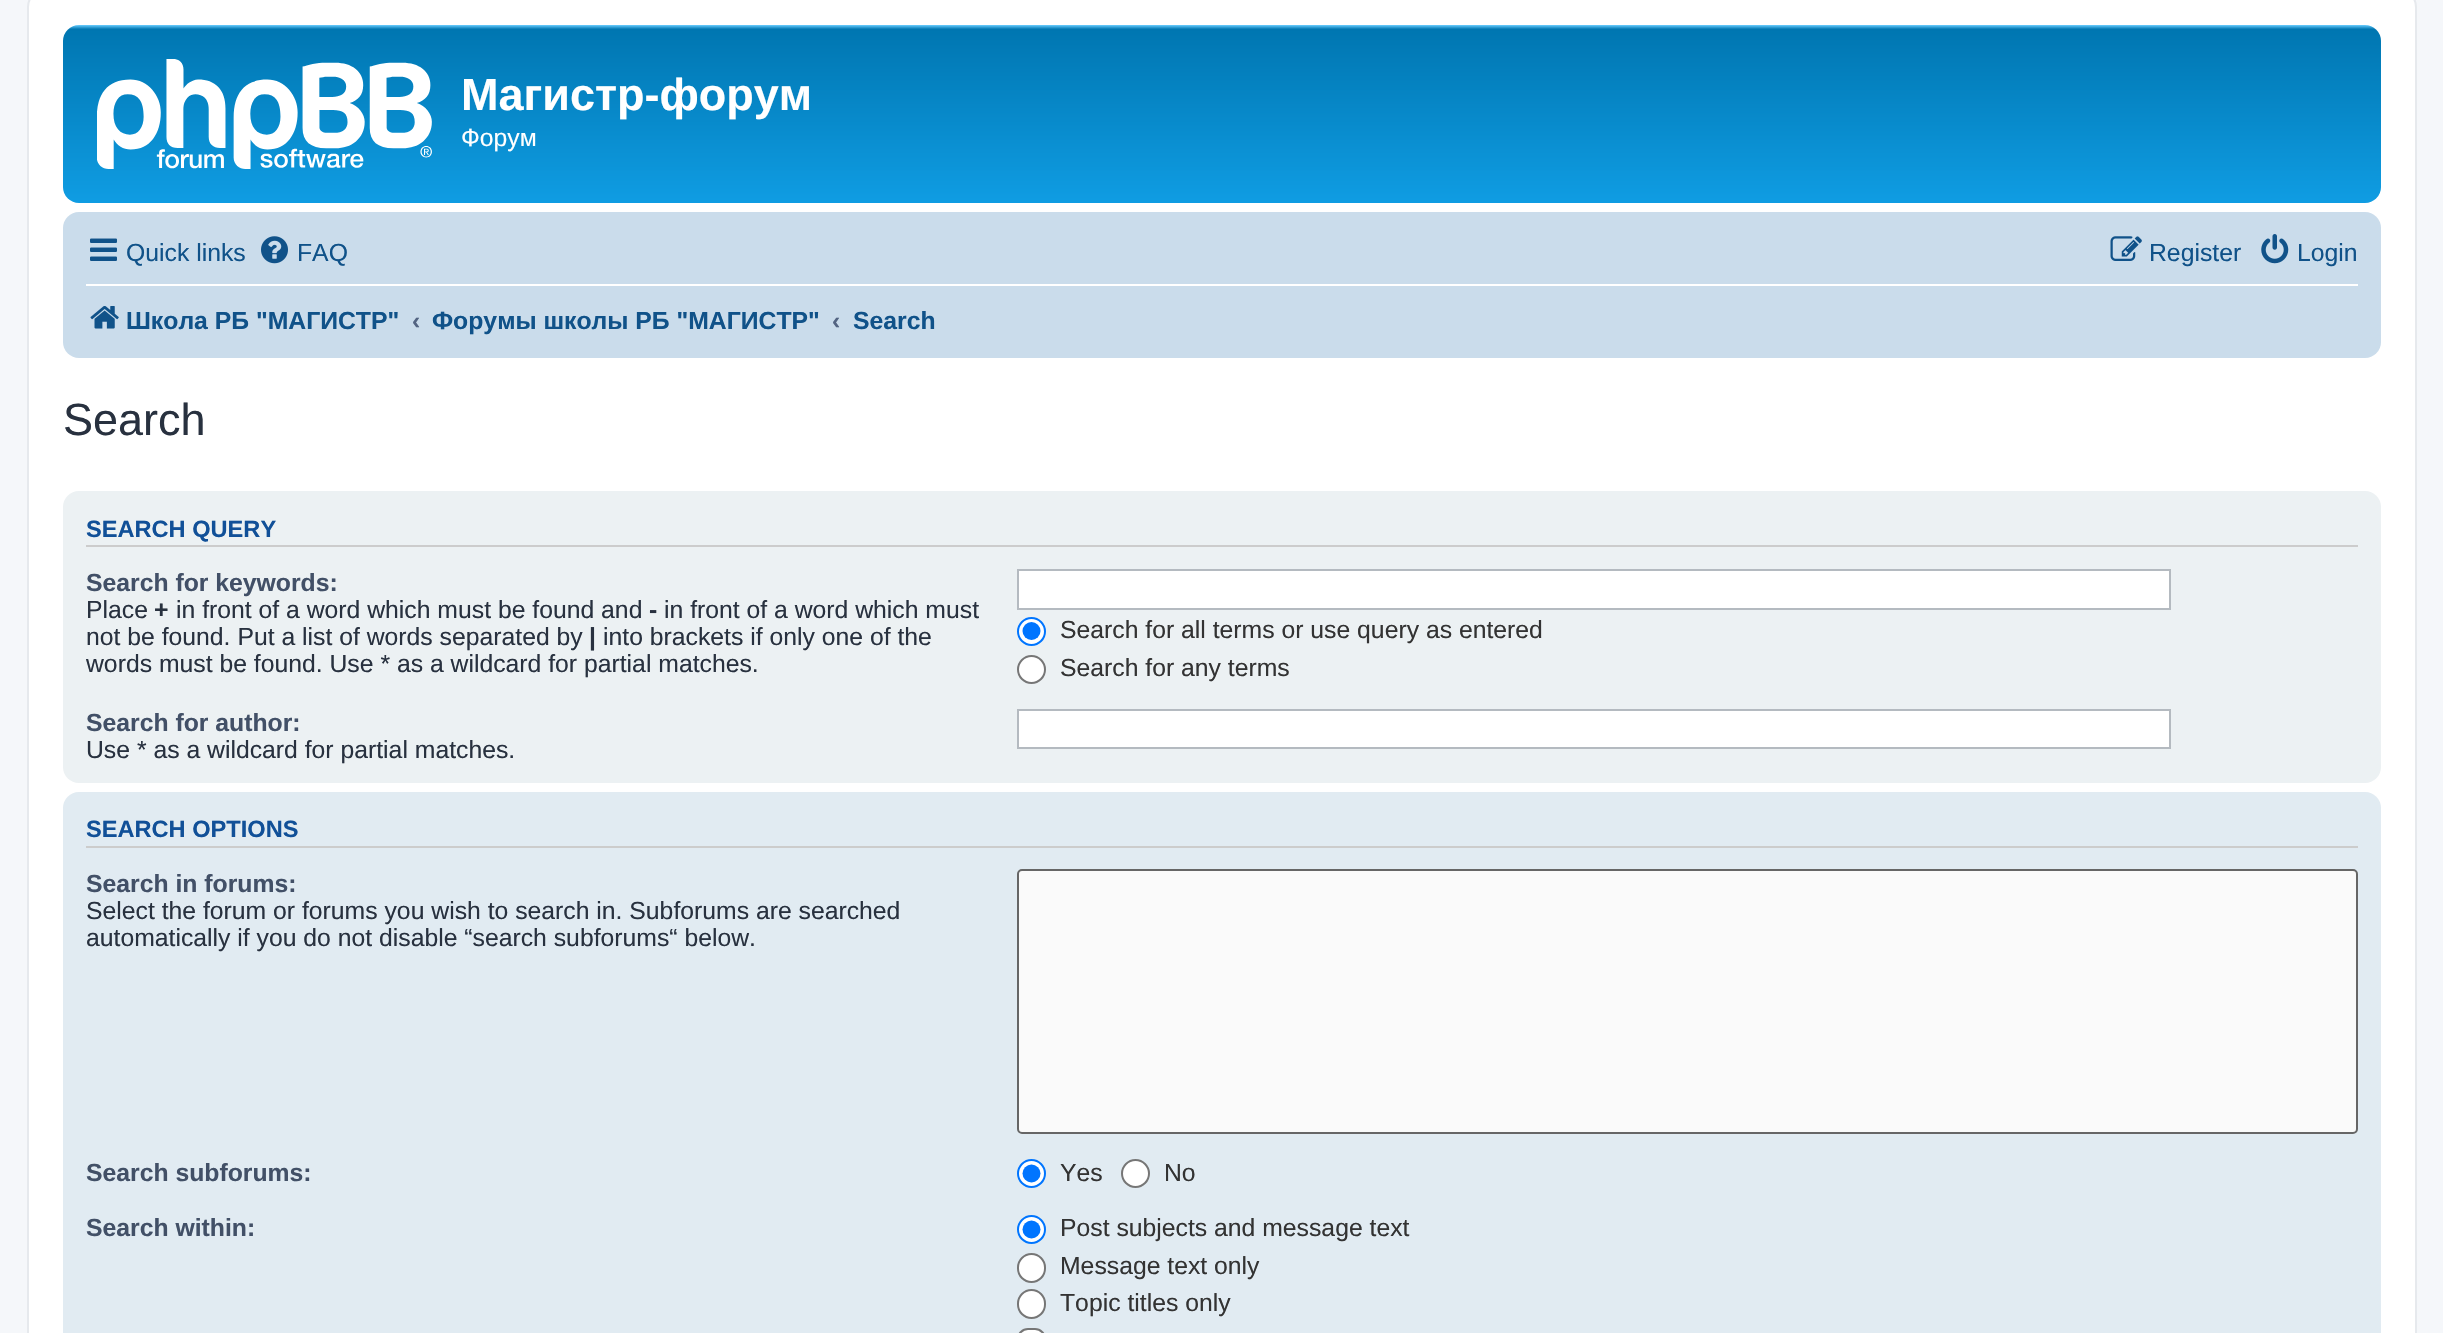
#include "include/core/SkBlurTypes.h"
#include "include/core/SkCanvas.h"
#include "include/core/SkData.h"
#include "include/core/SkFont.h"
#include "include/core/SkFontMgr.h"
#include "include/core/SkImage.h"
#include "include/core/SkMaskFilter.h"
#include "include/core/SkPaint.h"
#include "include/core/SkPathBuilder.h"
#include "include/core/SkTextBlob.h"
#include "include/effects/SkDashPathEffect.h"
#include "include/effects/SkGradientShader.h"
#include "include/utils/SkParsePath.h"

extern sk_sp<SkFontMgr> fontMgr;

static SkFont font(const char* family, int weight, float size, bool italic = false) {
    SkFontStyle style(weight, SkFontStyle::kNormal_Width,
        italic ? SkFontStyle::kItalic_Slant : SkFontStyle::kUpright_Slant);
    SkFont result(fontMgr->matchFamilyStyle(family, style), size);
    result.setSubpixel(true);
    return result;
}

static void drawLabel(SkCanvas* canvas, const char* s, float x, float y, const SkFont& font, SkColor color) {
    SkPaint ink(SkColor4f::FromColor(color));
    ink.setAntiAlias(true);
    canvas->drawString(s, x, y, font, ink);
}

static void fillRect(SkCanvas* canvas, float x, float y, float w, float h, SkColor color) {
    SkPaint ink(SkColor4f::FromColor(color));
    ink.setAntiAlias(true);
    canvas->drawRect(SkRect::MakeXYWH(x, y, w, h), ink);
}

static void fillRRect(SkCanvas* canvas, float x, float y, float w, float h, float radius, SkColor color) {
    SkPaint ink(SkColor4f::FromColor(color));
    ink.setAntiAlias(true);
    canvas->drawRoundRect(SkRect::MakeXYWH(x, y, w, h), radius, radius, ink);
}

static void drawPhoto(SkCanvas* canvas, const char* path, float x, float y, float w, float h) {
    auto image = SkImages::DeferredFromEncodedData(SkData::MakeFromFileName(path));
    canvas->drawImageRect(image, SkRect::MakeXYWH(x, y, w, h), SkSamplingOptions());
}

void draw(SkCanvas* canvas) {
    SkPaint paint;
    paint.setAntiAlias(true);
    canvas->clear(0xFFF5F7FA);
    paint.setColor(0xFFFFFFFF);
    canvas->drawRoundRect(SkRect::MakeXYWH(28, -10, 2388, 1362), 17, 17, paint);
    paint.setStroke(true);
    paint.setStrokeWidth(2);
    paint.setColor(0xFFE6E9ED);
    canvas->drawRoundRect(SkRect::MakeXYWH(28, -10, 2388, 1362), 17, 17, paint);
    paint.setStroke(false);
    {
        const SkColor colors[] = {0xFF6ACEFF, 0xFF0076B1, 0xFF12A3EB};
        const float stops[] = {0, 0.02f, 1};
        const SkPoint ends[] = {{1222, 25}, {1222, 232}};
        paint.setShader(SkGradientShader::MakeLinear(ends, colors, stops, 3, SkTileMode::kClamp));
        paint.setAlpha(255);
    }
    canvas->drawRoundRect(SkRect::MakeXYWH(63, 25, 2318, 178), 16, 16, paint);
    drawPhoto(canvas, "assets/img1.png", 97, 59, 335, 110);
    SkFont font1 = font("Liberation Sans", 700, 45);
    drawLabel(canvas, "Магистр-форум", 461, 110, font1, 0xFFFFFFFF);
    SkFont font2 = font("Liberation Sans", 400, 24.75f);
    drawLabel(canvas, "Форум", 461, 146, font2, 0xFFFFFFFF);
    fillRRect(canvas, 63, 212, 2318, 146, 16, 0xFFCADCEB);
    drawPhoto(canvas, "assets/img2.png", 90, 238, 27, 23);
    drawLabel(canvas, "Quick links", 126, 261, font2, 0xFF105289);
    drawPhoto(canvas, "assets/img3.png", 261, 236, 27, 28);
    drawLabel(canvas, "FAQ", 297, 261, font2, 0xFF105289);
    drawPhoto(canvas, "assets/img4.png", 2110, 236, 32, 25);
    drawLabel(canvas, "Register", 2149, 261, font2, 0xFF105289);
    drawPhoto(canvas, "assets/img5.png", 2261, 234, 28, 30);
    drawLabel(canvas, "Login", 2297, 261, font2, 0xFF105289);
    fillRect(canvas, 86, 284, 2272, 2, 0xFFFFFFFF);
    drawPhoto(canvas, "assets/img6.png", 90, 306, 29, 23);
    SkFont font3 = font("Liberation Sans", 700, 24.75f);
    drawLabel(canvas, "Школа РБ \"МАГИСТР\"", 126, 329, font3, 0xFF105289);
    drawLabel(canvas, "‹", 412, 329, font3, 0xFF536482);
    drawLabel(canvas, "Форумы школы РБ \"МАГИСТР\"", 432, 329, font3, 0xFF105289);
    drawLabel(canvas, "‹", 832, 329, font3, 0xFF536482);
    drawLabel(canvas, "Search", 853, 329, font3, 0xFF105289);
    SkFont font4 = font("Liberation Sans", 400, 45);
    drawLabel(canvas, "Search", 63, 435, font4, 0xFF28313F);
    fillRRect(canvas, 63, 491, 2318, 292, 16, 0xFFECF1F3);
    fillRect(canvas, 86, 545, 2272, 2, 0xFFCCCCCC);
    SkFont font5 = font("Liberation Sans", 700, 23.6f);
    drawLabel(canvas, "SEARCH QUERY", 86, 537, font5, 0xFF115098);
    drawLabel(canvas, "Search for keywords:", 86, 591, font3, 0xFF425067);
    drawLabel(canvas, "Place", 86, 618, font2, 0xFF28313F);
    drawLabel(canvas, "+", 154, 618, font3, 0xFF28313F);
    drawLabel(canvas, "in front of a word which must be found and", 176, 618, font2, 0xFF28313F);
    drawLabel(canvas, "-", 649, 618, font3, 0xFF28313F);
    drawLabel(canvas, "in front of a word which must", 664, 618, font2, 0xFF28313F);
    drawLabel(canvas, "not be found. Put a list of words separated by", 86, 645, font2, 0xFF28313F);
    drawLabel(canvas, "|", 589, 645, font3, 0xFF28313F);
    drawLabel(canvas, "into brackets if only one of the", 603, 645, font2, 0xFF28313F);
    drawLabel(canvas, "words must be found. Use * as a wildcard for partial matches.", 86, 672, font2, 0xFF28313F);
    paint.setShader(nullptr);
    paint.setColor(0xFFFFFFFF);
    canvas->drawRect(SkRect::MakeXYWH(1018, 570, 1152, 39), paint);
    paint.setStroke(true);
    paint.setColor(0xFFB4BAC0);
    canvas->drawRect(SkRect::MakeXYWH(1018, 570, 1152, 39), paint);
    paint.setStroke(false);
    paint.setColor(0xFFFFFFFF);
    canvas->drawCircle(1031.5f, 631.5f, 13.5f, paint);
    paint.setStroke(true);
    paint.setColor(0xFF0075FF);
    canvas->drawCircle(1031.5f, 631.5f, 13.5f, paint);
    paint.setStroke(false);
    canvas->drawCircle(1031.5f, 631, 9, paint);
    drawLabel(canvas, "Search for all terms or use query as entered", 1060, 638, font2, 0xFF333333);
    paint.setColor(0xFFFFFFFF);
    canvas->drawCircle(1031.5f, 669.5f, 13.5f, paint);
    paint.setStroke(true);
    paint.setColor(0xFF767676);
    canvas->drawCircle(1031.5f, 669.5f, 13.5f, paint);
    drawLabel(canvas, "Search for any terms", 1060, 676, font2, 0xFF333333);
    drawLabel(canvas, "Search for author:", 86, 731, font3, 0xFF425067);
    drawLabel(canvas, "Use * as a wildcard for partial matches.", 86, 758, font2, 0xFF28313F);
    paint.setStroke(false);
    paint.setColor(0xFFFFFFFF);
    canvas->drawRect(SkRect::MakeXYWH(1018, 710, 1152, 38), paint);
    paint.setStroke(true);
    paint.setColor(0xFFB4BAC0);
    canvas->drawRect(SkRect::MakeXYWH(1018, 710, 1152, 38), paint);
    fillRRect(canvas, 63, 792, 2318, 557, 16, 0xFFE1EBF2);
    fillRect(canvas, 86, 846, 2272, 2, 0xFFCCCCCC);
    drawLabel(canvas, "SEARCH OPTIONS", 86, 837, font5, 0xFF115098);
    drawLabel(canvas, "Search in forums:", 86, 892, font3, 0xFF425067);
    drawLabel(canvas, "Select the forum or forums you wish to search in. Subforums are searched", 86, 919, font2, 0xFF28313F);
    drawLabel(canvas, "automatically if you do not disable “search subforums“ below.", 86, 946, font2, 0xFF28313F);
    paint.setStroke(false);
    paint.setColor(0xFFFAFAFA);
    canvas->drawRoundRect(SkRect::MakeXYWH(1018, 870, 1339, 263), 4, 4, paint);
    paint.setStroke(true);
    paint.setColor(0xFF666666);
    canvas->drawRoundRect(SkRect::MakeXYWH(1018, 870, 1339, 263), 4, 4, paint);
    drawLabel(canvas, "Search subforums:", 86, 1181, font3, 0xFF425067);
    paint.setStroke(false);
    paint.setColor(0xFFFFFFFF);
    canvas->drawCircle(1031.5f, 1173.5f, 13.5f, paint);
    paint.setStroke(true);
    paint.setColor(0xFF0075FF);
    canvas->drawCircle(1031.5f, 1173.5f, 13.5f, paint);
    paint.setStroke(false);
    canvas->drawCircle(1031.5f, 1173.5f, 9, paint);
    drawLabel(canvas, "Yes", 1060, 1181, font2, 0xFF333333);
    paint.setColor(0xFFFFFFFF);
    canvas->drawCircle(1135.5f, 1173.5f, 13.5f, paint);
    paint.setStroke(true);
    paint.setColor(0xFF767676);
    canvas->drawCircle(1135.5f, 1173.5f, 13.5f, paint);
    drawLabel(canvas, "No", 1164, 1181, font2, 0xFF333333);
    drawLabel(canvas, "Search within:", 86, 1236, font3, 0xFF425067);
    paint.setStroke(false);
    paint.setColor(0xFFFFFFFF);
    canvas->drawCircle(1031.5f, 1229.5f, 13.5f, paint);
    paint.setStroke(true);
    paint.setColor(0xFF0075FF);
    canvas->drawCircle(1031.5f, 1229.5f, 13.5f, paint);
    paint.setStroke(false);
    canvas->drawCircle(1031.5f, 1229.5f, 9, paint);
    drawLabel(canvas, "Post subjects and message text", 1060, 1236, font2, 0xFF333333);
    paint.setColor(0xFFFFFFFF);
    canvas->drawRoundRect(SkRect::MakeXYWH(1018, 1254, 27, 28), 13.5f, 13.5f, paint);
    paint.setStroke(true);
    paint.setColor(0xFF767676);
    canvas->drawRoundRect(SkRect::MakeXYWH(1018, 1254, 27, 28), 13.5f, 13.5f, paint);
    drawLabel(canvas, "Message text only", 1060, 1274, font2, 0xFF333333);
    paint.setStroke(false);
    paint.setColor(0xFFFFFFFF);
    canvas->drawRoundRect(SkRect::MakeXYWH(1018, 1290, 27, 28), 13.5f, 13.5f, paint);
    paint.setStroke(true);
    paint.setColor(0xFF767676);
    canvas->drawRoundRect(SkRect::MakeXYWH(1018, 1290, 27, 28), 13.5f, 13.5f, paint);
    drawLabel(canvas, "Topic titles only", 1060, 1311, font2, 0xFF333333);
    paint.setStroke(false);
    paint.setColor(0xFFFFFFFF);
    canvas->drawRoundRect(SkRect::MakeXYWH(1018, 1329, 27, 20), 13.5f, 13.5f, paint);
    paint.setStroke(true);
    paint.setColor(0xFF767676);
    canvas->drawRoundRect(SkRect::MakeXYWH(1018, 1329, 27, 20), 13.5f, 13.5f, paint);
}
